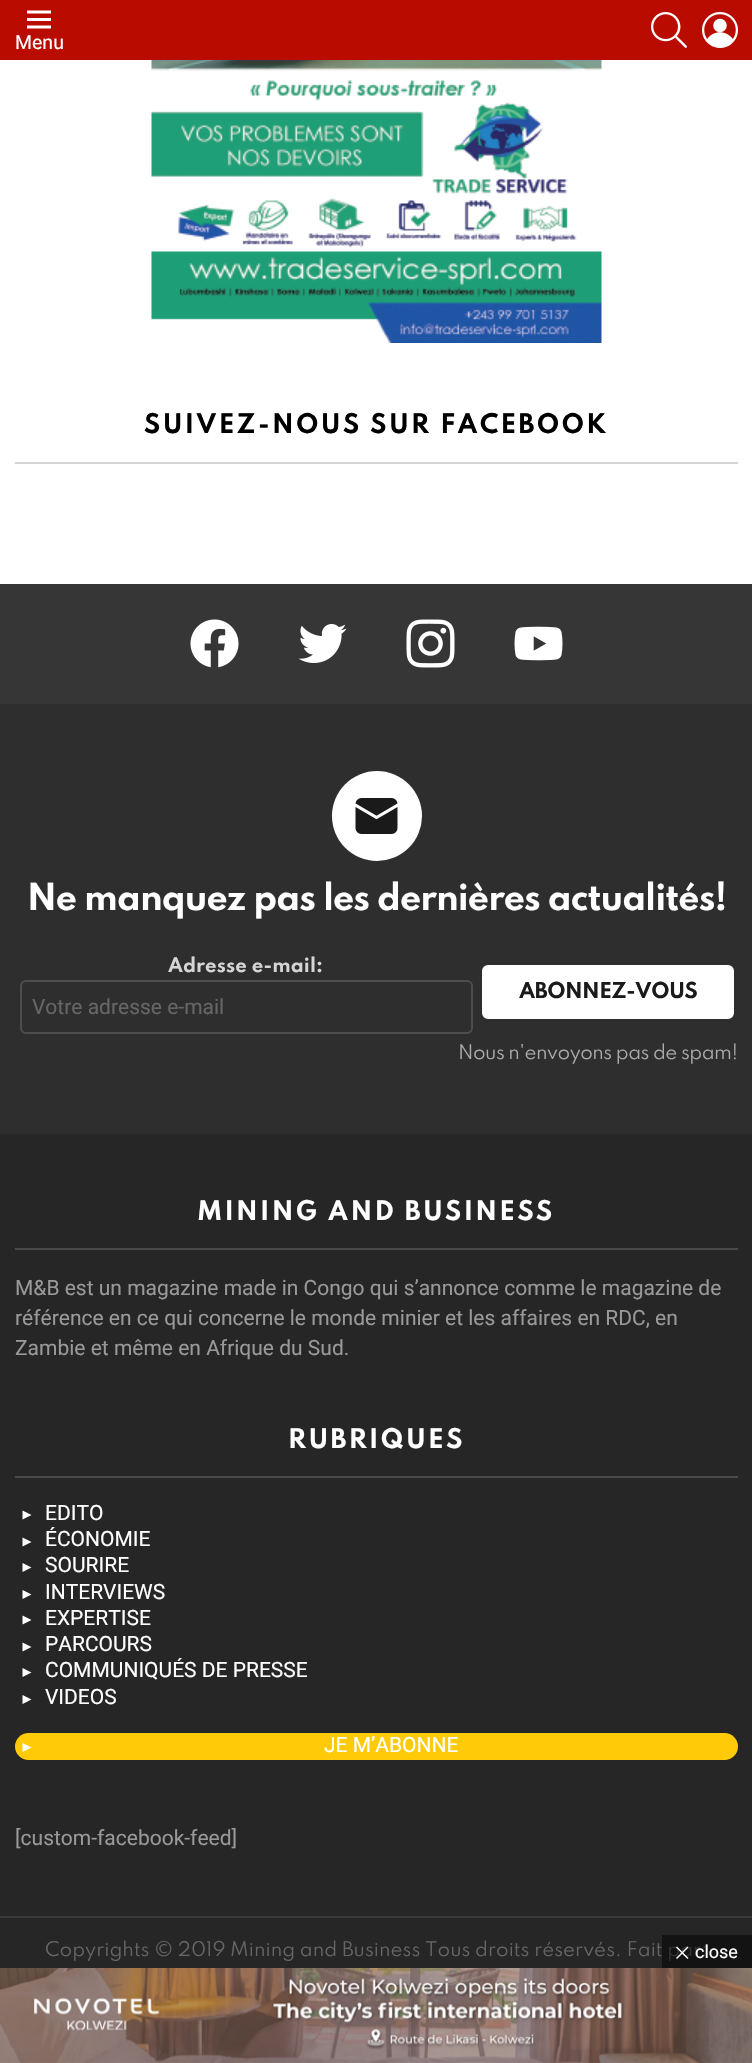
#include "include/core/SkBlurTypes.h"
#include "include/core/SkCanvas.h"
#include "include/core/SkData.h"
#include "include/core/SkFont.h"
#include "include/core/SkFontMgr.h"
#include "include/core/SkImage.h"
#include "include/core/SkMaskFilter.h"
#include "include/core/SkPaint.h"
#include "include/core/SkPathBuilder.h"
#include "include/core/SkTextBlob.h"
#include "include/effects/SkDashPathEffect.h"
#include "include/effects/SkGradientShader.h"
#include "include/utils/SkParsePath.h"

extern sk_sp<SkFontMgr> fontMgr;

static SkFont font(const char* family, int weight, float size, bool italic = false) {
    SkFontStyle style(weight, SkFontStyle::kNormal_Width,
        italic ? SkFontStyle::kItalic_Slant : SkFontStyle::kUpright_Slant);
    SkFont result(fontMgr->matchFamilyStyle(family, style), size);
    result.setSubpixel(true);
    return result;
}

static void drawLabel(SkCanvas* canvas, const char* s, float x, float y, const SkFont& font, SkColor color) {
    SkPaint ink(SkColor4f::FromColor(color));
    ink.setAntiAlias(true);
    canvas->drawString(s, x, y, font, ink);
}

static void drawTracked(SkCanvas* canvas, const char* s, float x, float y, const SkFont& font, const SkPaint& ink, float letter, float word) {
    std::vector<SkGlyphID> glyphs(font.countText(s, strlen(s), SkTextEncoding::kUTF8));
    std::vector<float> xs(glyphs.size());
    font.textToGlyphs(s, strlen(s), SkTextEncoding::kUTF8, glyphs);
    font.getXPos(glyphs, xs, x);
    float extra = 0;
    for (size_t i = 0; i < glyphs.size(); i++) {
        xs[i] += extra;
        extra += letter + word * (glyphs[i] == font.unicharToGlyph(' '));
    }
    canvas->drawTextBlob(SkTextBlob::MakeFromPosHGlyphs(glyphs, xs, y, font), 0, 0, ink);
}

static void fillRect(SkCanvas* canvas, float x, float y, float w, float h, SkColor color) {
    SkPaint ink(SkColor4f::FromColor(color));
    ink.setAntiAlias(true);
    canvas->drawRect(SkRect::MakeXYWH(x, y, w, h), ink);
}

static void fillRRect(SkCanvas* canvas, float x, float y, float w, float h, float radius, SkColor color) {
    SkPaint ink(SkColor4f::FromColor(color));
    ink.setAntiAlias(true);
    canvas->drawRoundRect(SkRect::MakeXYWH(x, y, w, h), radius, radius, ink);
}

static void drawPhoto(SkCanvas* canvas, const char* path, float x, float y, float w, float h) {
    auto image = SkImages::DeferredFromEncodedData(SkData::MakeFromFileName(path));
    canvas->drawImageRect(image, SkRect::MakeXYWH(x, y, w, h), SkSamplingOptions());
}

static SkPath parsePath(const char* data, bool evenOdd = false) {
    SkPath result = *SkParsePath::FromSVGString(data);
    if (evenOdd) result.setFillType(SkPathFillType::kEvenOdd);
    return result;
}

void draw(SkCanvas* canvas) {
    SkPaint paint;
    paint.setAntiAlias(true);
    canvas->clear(0xFFFFFFFF);
    fillRect(canvas, 0, 0, 752, 60, 0xFFB90B00);
    drawPhoto(canvas, "assets/img1.png", 27, 10, 24, 19);
    SkFont font1 = font("Roboto", 400, 19.5f);
    drawLabel(canvas, "Menu", 15, 49, font1, 0xFFFFFFFF);
    drawPhoto(canvas, "assets/img2.png", 651, 12, 36, 36);
    drawPhoto(canvas, "assets/img3.png", 702, 12, 36, 36);
    drawPhoto(canvas, "assets/img4.png", 151, 60, 451, 283);
    SkFont font2 = font("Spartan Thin", 700, 24);
    paint.setColor(0xFF000000);
    drawTracked(canvas, "SUIVEZ-NOUS SUR FACEBOOK", 144, 433, font2, paint, 2.3f, 0);
    fillRect(canvas, 15, 462, 723, 2, 0xFFD4D4D4);
    fillRect(canvas, 0, 584, 752, 120, 0xFF363636);
    drawPhoto(canvas, "assets/img5.png", 190, 619, 49, 49);
    drawPhoto(canvas, "assets/img6.png", 298, 624, 49, 39);
    drawPhoto(canvas, "assets/img7.png", 406, 619, 49, 49);
    drawPhoto(canvas, "assets/img8.png", 514, 626, 49, 35);
    fillRect(canvas, 0, 704, 752, 430, 0xFF2E2E2E);
    paint.setColor(0xFFFFFFFF);
    canvas->drawCircle(377, 816, 45, paint);
    drawPhoto(canvas, "assets/img9.png", 355, 798, 43, 36);
    SkFont font3 = font("Spartan Thin", 700, 33);
    drawTracked(canvas, "Ne manquez pas les dernières actualités!", 27, 910, font3, paint, -1, 0);
    SkFont font4 = font("Spartan Thin", 700, 18);
    drawLabel(canvas, "Adresse e-mail:", 168, 972, font4, 0xFFD5D5D5);
    paint.setStroke(true);
    paint.setStrokeWidth(2);
    paint.setColor(0xFF4D4D4D);
    canvas->drawRoundRect(SkRect::MakeXYWH(21, 981, 451, 52), 5, 5, paint);
    SkFont font5 = font("Roboto", 400, 21);
    drawLabel(canvas, "Votre adresse e-mail", 32, 1014, font5, 0xFF666666);
    paint.setStroke(false);
    paint.setColor(0xFFFFFFFF);
    canvas->drawRoundRect(SkRect::MakeXYWH(483.5f, 966.5f, 249, 51), 4.5f, 4.5f, paint);
    paint.setStroke(true);
    paint.setStrokeWidth(3);
    canvas->drawRoundRect(SkRect::MakeXYWH(483.5f, 966.5f, 249, 51), 4.5f, 4.5f, paint);
    SkFont font6 = font("Spartan Thin", 700, 19.5f);
    paint.setStroke(false);
    paint.setColor(0xFF1A1A1A);
    drawTracked(canvas, "ABONNEZ-VOUS", 519, 998, font6, paint, -0.5f, 0);
    SkFont font7 = font("Spartan Thin", 400, 18);
    paint.setColor(0xFFABABAB);
    drawTracked(canvas, "Nous n'envoyons pas de spam!", 458, 1059, font7, paint, -0.55f, 0);
    fillRect(canvas, 0, 1134, 752, 782, 0xFF262626);
    paint.setColor(0xFFFFFFFF);
    drawTracked(canvas, "MINING AND BUSINESS", 197, 1220, font2, paint, 2.3f, 0);
    fillRect(canvas, 15, 1248, 723, 2, 0xFF4A4A4A);
    drawLabel(canvas, "M&B est un magazine made in Congo qui s’annonce comme le magazine de", 15, 1295, font5, 0xFF999999);
    drawLabel(canvas, "référence en ce qui concerne le monde minier et les affaires en RDC, en", 15, 1325, font5, 0xFF999999);
    drawLabel(canvas, "Zambie et même en Afrique du Sud.", 15, 1355, font5, 0xFF999999);
    drawTracked(canvas, "RUBRIQUES", 288, 1448, font2, paint, 2.3f, 0);
    fillRect(canvas, 15, 1476, 723, 2, 0xFF4A4A4A);
    canvas->drawPath(parsePath("M31.5 1515L22.5 1510.5V1519.5Z"), paint);
    drawLabel(canvas, "EDITO", 45, 1520, font5, 0xFFFFFFFF);
    canvas->drawPath(parsePath("M31.5 1542L22.5 1537.5V1546.5Z"), paint);
    drawLabel(canvas, "ÉCONOMIE", 45, 1546, font5, 0xFFFFFFFF);
    canvas->drawPath(parsePath("M31.5 1567.5L22.5 1563V1572Z"), paint);
    drawLabel(canvas, "SOURIRE", 45, 1572, font5, 0xFFFFFFFF);
    canvas->drawPath(parsePath("M31.5 1594.5L22.5 1590V1599Z"), paint);
    drawLabel(canvas, "INTERVIEWS", 45, 1599, font5, 0xFFFFFFFF);
    canvas->drawPath(parsePath("M31.5 1620L22.5 1615.5V1624.5Z"), paint);
    drawLabel(canvas, "EXPERTISE", 45, 1625, font5, 0xFFFFFFFF);
    canvas->drawPath(parsePath("M31.5 1647L22.5 1642.5V1651.5Z"), paint);
    drawLabel(canvas, "PARCOURS", 45, 1651, font5, 0xFFFFFFFF);
    canvas->drawPath(parsePath("M31.5 1672.5L22.5 1668V1677Z"), paint);
    drawLabel(canvas, "COMMUNIQUÉS DE PRESSE", 45, 1677, font5, 0xFFFFFFFF);
    canvas->drawPath(parsePath("M31.5 1699.5L22.5 1695V1704Z"), paint);
    drawLabel(canvas, "VIDEOS", 45, 1704, font5, 0xFFFFFFFF);
    fillRRect(canvas, 15, 1733, 723, 27, 13.5f, 0xFFFFCB08);
    canvas->drawPath(parsePath("M31.5 1747.5L22.5 1743V1752Z"), paint);
    drawLabel(canvas, "JE M’ABONNE", 324, 1752, font5, 0xFFFFFFFF);
    drawLabel(canvas, "[custom-facebook-feed]", 15, 1845, font5, 0xFF999999);
    fillRect(canvas, 0, 1916, 752, 2, 0xFF393939);
    fillRect(canvas, 0, 1918, 752, 50, 0xFF262626);
    drawLabel(canvas, "Copyrights © 2019 Mining and Business Tous droits réservés. Fait par:", 45, 1956, font7, 0xFF666666);
    fillRect(canvas, 662, 1935, 90, 33, 0x80000000);
    canvas->drawPath(parsePath("M677 1946.5L688.5 1958L687.5 1959L676 1947.5Z"), paint);
    SkFont font8 = font("Roboto", 400, 18);
    drawLabel(canvas, "close", 695, 1958, font8, 0xFFFFFFFF);
    canvas->drawPath(parsePath("M687.5 1946.5L688.5 1947.5L677 1959L676 1958Z"), paint);
    drawPhoto(canvas, "assets/img10.png", 0, 1968, 752, 95);
}
